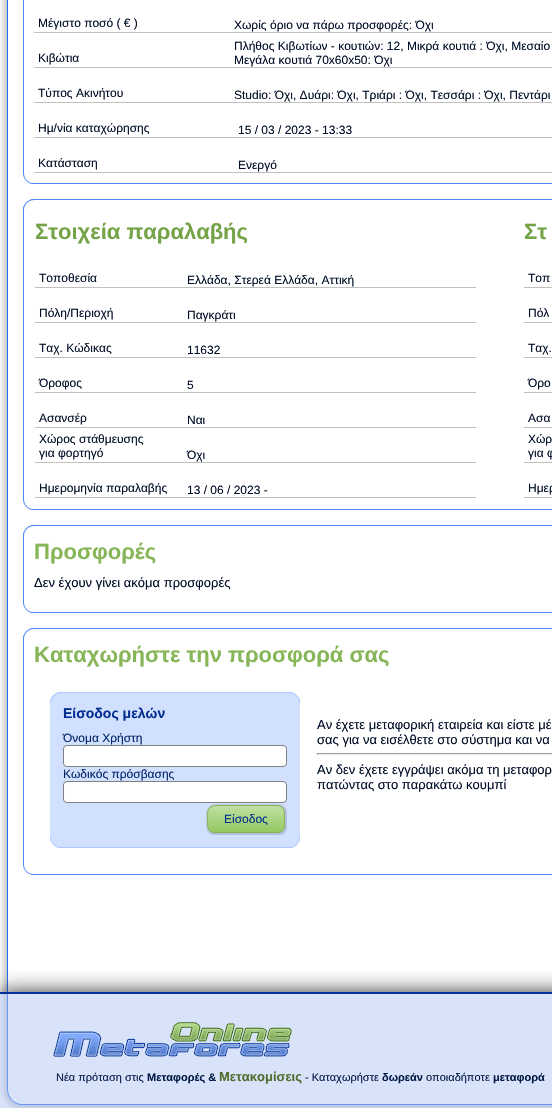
#include "include/core/SkBlurTypes.h"
#include "include/core/SkCanvas.h"
#include "include/core/SkData.h"
#include "include/core/SkFont.h"
#include "include/core/SkFontMgr.h"
#include "include/core/SkImage.h"
#include "include/core/SkMaskFilter.h"
#include "include/core/SkPaint.h"
#include "include/core/SkPathBuilder.h"
#include "include/core/SkTextBlob.h"
#include "include/effects/SkDashPathEffect.h"
#include "include/effects/SkGradientShader.h"
#include "include/utils/SkParsePath.h"

extern sk_sp<SkFontMgr> fontMgr;

static SkFont font(const char* family, int weight, float size, bool italic = false) {
    SkFontStyle style(weight, SkFontStyle::kNormal_Width,
        italic ? SkFontStyle::kItalic_Slant : SkFontStyle::kUpright_Slant);
    SkFont result(fontMgr->matchFamilyStyle(family, style), size);
    result.setSubpixel(true);
    return result;
}

static void drawLabel(SkCanvas* canvas, const char* s, float x, float y, const SkFont& font, SkColor color) {
    SkPaint ink(SkColor4f::FromColor(color));
    ink.setAntiAlias(true);
    canvas->drawString(s, x, y, font, ink);
}

static void fillRect(SkCanvas* canvas, float x, float y, float w, float h, SkColor color) {
    SkPaint ink(SkColor4f::FromColor(color));
    ink.setAntiAlias(true);
    canvas->drawRect(SkRect::MakeXYWH(x, y, w, h), ink);
}

static void drawPhoto(SkCanvas* canvas, const char* path, float x, float y, float w, float h) {
    auto image = SkImages::DeferredFromEncodedData(SkData::MakeFromFileName(path));
    canvas->drawImageRect(image, SkRect::MakeXYWH(x, y, w, h), SkSamplingOptions());
}

void draw(SkCanvas* canvas) {
    SkPaint paint;
    paint.setAntiAlias(true);
    canvas->clear(0xFFFFFFFF);
    drawPhoto(canvas, "assets/img1.png", 0, 0, 8, 1068);
    fillRect(canvas, 23, 0, 1, 173, 0xFF4D86F9);
    fillRect(canvas, 34, 32, 518, 1, 0xFFC0C0C0);
    SkFont font1 = font("Liberation Sans", 400, 12);
    drawLabel(canvas, "Μέγιστο ποσό ( € )", 38, 27, font1, 0xFF010E28);
    drawLabel(canvas, "Xωρίς όριο να πάρω προσφορές: Όχι", 234, 29, font1, 0xFF010E28);
    fillRect(canvas, 34, 67, 518, 1, 0xFFC0C0C0);
    drawLabel(canvas, "Κιβώτια", 38, 62, font1, 0xFF010E28);
    drawLabel(canvas, "Πλήθος Κιβωτίων - κουτιών: 12, Μικρά κουτιά : Όχι, Μεσαίο", 234, 50, font1, 0xFF010E28);
    drawLabel(canvas, "Μεγάλα κουτιά 70x60x50: Όχι", 234, 64, font1, 0xFF010E28);
    fillRect(canvas, 34, 102, 518, 1, 0xFFC0C0C0);
    drawLabel(canvas, "Τύπος Ακινήτου", 38, 97, font1, 0xFF010E28);
    drawLabel(canvas, "Studio: Όχι, Δυάρι: Όχι, Τριάρι : Όχι, Τεσσάρι : Όχι, Πεντάρι", 234, 99, font1, 0xFF010E28);
    fillRect(canvas, 34, 137, 518, 1, 0xFFC0C0C0);
    drawLabel(canvas, "Ημ/νία καταχώρησης", 38, 132, font1, 0xFF010E28);
    drawLabel(canvas, "15 / 03 / 2023 - 13:33", 238, 134, font1, 0xFF010E28);
    fillRect(canvas, 34, 172, 518, 1, 0xFFC0C0C0);
    drawLabel(canvas, "Κατάσταση", 38, 167, font1, 0xFF010E28);
    drawLabel(canvas, "Ενεργό", 238, 169, font1, 0xFF010E28);
    drawPhoto(canvas, "assets/img2.png", 23, 173, 529, 11);
    drawPhoto(canvas, "assets/img3.png", 23, 199, 529, 311);
    drawPhoto(canvas, "assets/img4.png", 23, 199, 11, 11);
    fillRect(canvas, 23, 210, 1, 289, 0xFF4D86F9);
    SkFont font2 = font("Liberation Sans", 700, 22);
    drawLabel(canvas, "Στοιχεία παραλαβής", 35, 239, font2, 0xFF75A348);
    fillRect(canvas, 35, 287, 441, 1, 0xFFC0C0C0);
    drawLabel(canvas, "Τοποθεσία", 39, 282, font1, 0xFF010E28);
    drawLabel(canvas, "Ελλάδα, Στερεά Ελλάδα, Αττική", 187, 284, font1, 0xFF010E28);
    fillRect(canvas, 35, 322, 441, 1, 0xFFC0C0C0);
    drawLabel(canvas, "Πόλη/Περιοχή", 39, 317, font1, 0xFF010E28);
    drawLabel(canvas, "Παγκράτι", 187, 319, font1, 0xFF010E28);
    fillRect(canvas, 35, 357, 441, 1, 0xFFC0C0C0);
    drawLabel(canvas, "Ταχ. Κώδικας", 39, 352, font1, 0xFF010E28);
    drawLabel(canvas, "11632", 187, 354, font1, 0xFF010E28);
    fillRect(canvas, 35, 392, 441, 1, 0xFFC0C0C0);
    drawLabel(canvas, "Όροφος", 39, 387, font1, 0xFF010E28);
    drawLabel(canvas, "5", 187, 389, font1, 0xFF010E28);
    fillRect(canvas, 35, 427, 441, 1, 0xFFC0C0C0);
    drawLabel(canvas, "Ασανσέρ", 39, 422, font1, 0xFF010E28);
    drawLabel(canvas, "Ναι", 187, 424, font1, 0xFF010E28);
    fillRect(canvas, 35, 462, 441, 1, 0xFFC0C0C0);
    drawLabel(canvas, "Χώρος στάθμευσης", 39, 443, font1, 0xFF010E28);
    drawLabel(canvas, "για φορτηγό", 39, 457, font1, 0xFF010E28);
    drawLabel(canvas, "Όχι", 187, 459, font1, 0xFF010E28);
    fillRect(canvas, 35, 497, 441, 1, 0xFFC0C0C0);
    drawLabel(canvas, "Ημερομηνία παραλαβής", 39, 492, font1, 0xFF010E28);
    drawLabel(canvas, "13 / 06 / 2023 -", 187, 494, font1, 0xFF010E28);
    drawLabel(canvas, "Στ", 524, 239, font2, 0xFF75A348);
    fillRect(canvas, 524, 287, 28, 1, 0xFFC0C0C0);
    drawLabel(canvas, "Τοπ", 528, 282, font1, 0xFF010E28);
    fillRect(canvas, 524, 322, 28, 1, 0xFFC0C0C0);
    drawLabel(canvas, "Πόλ", 528, 317, font1, 0xFF010E28);
    fillRect(canvas, 524, 357, 28, 1, 0xFFC0C0C0);
    drawLabel(canvas, "Ταχ.", 528, 352, font1, 0xFF010E28);
    fillRect(canvas, 524, 392, 28, 1, 0xFFC0C0C0);
    drawLabel(canvas, "Όρο", 528, 387, font1, 0xFF010E28);
    fillRect(canvas, 524, 427, 28, 1, 0xFFC0C0C0);
    drawLabel(canvas, "Ασα", 528, 422, font1, 0xFF010E28);
    fillRect(canvas, 524, 462, 28, 1, 0xFFC0C0C0);
    drawLabel(canvas, "Χώρ", 528, 443, font1, 0xFF010E28);
    drawLabel(canvas, "για φ", 528, 457, font1, 0xFF010E28);
    fillRect(canvas, 524, 497, 28, 1, 0xFFC0C0C0);
    drawLabel(canvas, "Ημερ", 528, 492, font1, 0xFF010E28);
    drawPhoto(canvas, "assets/img5.png", 23, 525, 529, 88);
    drawPhoto(canvas, "assets/img4.png", 23, 525, 11, 11);
    fillRect(canvas, 23, 536, 1, 66, 0xFF4D86F9);
    drawLabel(canvas, "Προσφορές", 34, 559, font2, 0xFF87B658);
    SkFont font3 = font("Liberation Sans", 400, 13);
    drawLabel(canvas, "Δεν έχουν γίνει ακόμα προσφορές", 34, 587, font3, 0xFF010E28);
    drawPhoto(canvas, "assets/img6.png", 23, 628, 529, 247);
    drawPhoto(canvas, "assets/img4.png", 23, 628, 11, 11);
    fillRect(canvas, 23, 639, 1, 225, 0xFF4D86F9);
    drawLabel(canvas, "Καταχωρήστε την προσφορά σας", 34, 662, font2, 0xFF87B658);
    drawPhoto(canvas, "assets/img7.png", 50, 692, 239, 156);
    drawPhoto(canvas, "assets/img8.png", 50, 692, 11, 10);
    fillRect(canvas, 50, 703, 250, 134, 0xFFD1E0FF);
    drawPhoto(canvas, "assets/img9.png", 289, 692, 11, 156);
    drawPhoto(canvas, "assets/img10.png", 289, 692, 11, 9);
    SkFont font4 = font("Liberation Sans", 700, 14);
    drawLabel(canvas, "Είσοδος μελών", 63, 718, font4, 0xFF002D8F);
    drawLabel(canvas, "Όνομα Χρήστη", 63, 742, font1, 0xFF032568);
    paint.setColor(0xFFFFFFFF);
    canvas->drawRoundRect(SkRect::MakeXYWH(63.5f, 745.5f, 223, 21), 3.5f, 3.5f, paint);
    paint.setStroke(true);
    paint.setStrokeWidth(1);
    paint.setColor(0xFF808080);
    canvas->drawRoundRect(SkRect::MakeXYWH(63.5f, 745.5f, 223, 21), 3.5f, 3.5f, paint);
    drawLabel(canvas, "Κωδικός πρόσβασης", 63, 778, font1, 0xFF032568);
    paint.setStroke(false);
    paint.setColor(0xFFFFFFFF);
    canvas->drawRoundRect(SkRect::MakeXYWH(63.5f, 781.5f, 223, 21), 3.5f, 3.5f, paint);
    paint.setStroke(true);
    paint.setColor(0xFF808080);
    canvas->drawRoundRect(SkRect::MakeXYWH(63.5f, 781.5f, 223, 21), 3.5f, 3.5f, paint);
    drawPhoto(canvas, "assets/img11.png", 206, 804, 69, 31);
    drawPhoto(canvas, "assets/img12.png", 275, 804, 12, 31);
    drawLabel(canvas, "Είσοδος", 224, 823, font1, 0xFF002D8F);
    drawLabel(canvas, "Αν έχετε μεταφορική εταιρεία και είστε μέ", 317, 729, font3, 0xFF010E28);
    drawLabel(canvas, "σας για να εισέλθετε στο σύστημα και να", 317, 744, font3, 0xFF010E28);
    fillRect(canvas, 317, 753, 235, 1, 0xFF9F9F9F);
    fillRect(canvas, 317, 754, 235, 1, 0xFFEEEEEE);
    fillRect(canvas, 317, 753, 1, 2, 0xFF9F9F9F);
    drawLabel(canvas, "Αν δεν έχετε εγγράψει ακόμα τη μεταφορ", 317, 774, font3, 0xFF010E28);
    drawLabel(canvas, "πατώντας στο παρακάτω κουμπί", 317, 789, font3, 0xFF010E28);
    drawPhoto(canvas, "assets/img13.png", 0, 1068, 552, 40);
    fillRect(canvas, 0, 994, 552, 114, 0x80B1C5F3);
    canvas->save();
    canvas->clipRect(SkRect::MakeXYWH(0, 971, 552, 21));
    paint.setStroke(false);
    paint.setColor(0xFF333333);
    paint.setMaskFilter(SkMaskFilter::MakeBlur(kNormal_SkBlurStyle, 10));
    canvas->drawRect(SkRect::MakeXYWH(0, 992, 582, 116), paint);
    paint.setMaskFilter(nullptr);
    canvas->restore();
    fillRect(canvas, 0, 992, 552, 2, 0xFF003399);
    drawPhoto(canvas, "assets/img14.png", 53, 1022, 239, 35);
    SkFont font5 = font("Liberation Sans", 400, 11);
    drawLabel(canvas, "Νέα πρόταση στις", 56, 1081, font5, 0xFF021945);
    SkFont font6 = font("Liberation Sans", 700, 11);
    drawLabel(canvas, "Μεταφορές &", 147, 1081, font6, 0xFF021945);
    SkFont font7 = font("Liberation Sans", 700, 13);
    drawLabel(canvas, "Μετακομίσεις", 219, 1081, font7, 0xFF4F6E30);
    drawLabel(canvas, "- Καταχωρήστε", 305, 1081, font5, 0xFF021945);
    drawLabel(canvas, "δωρεάν", 382, 1081, font6, 0xFF021945);
    drawLabel(canvas, "οποιαδήποτε", 426, 1081, font5, 0xFF021945);
    drawLabel(canvas, "μεταφορά", 493, 1081, font6, 0xFF021945);
}
